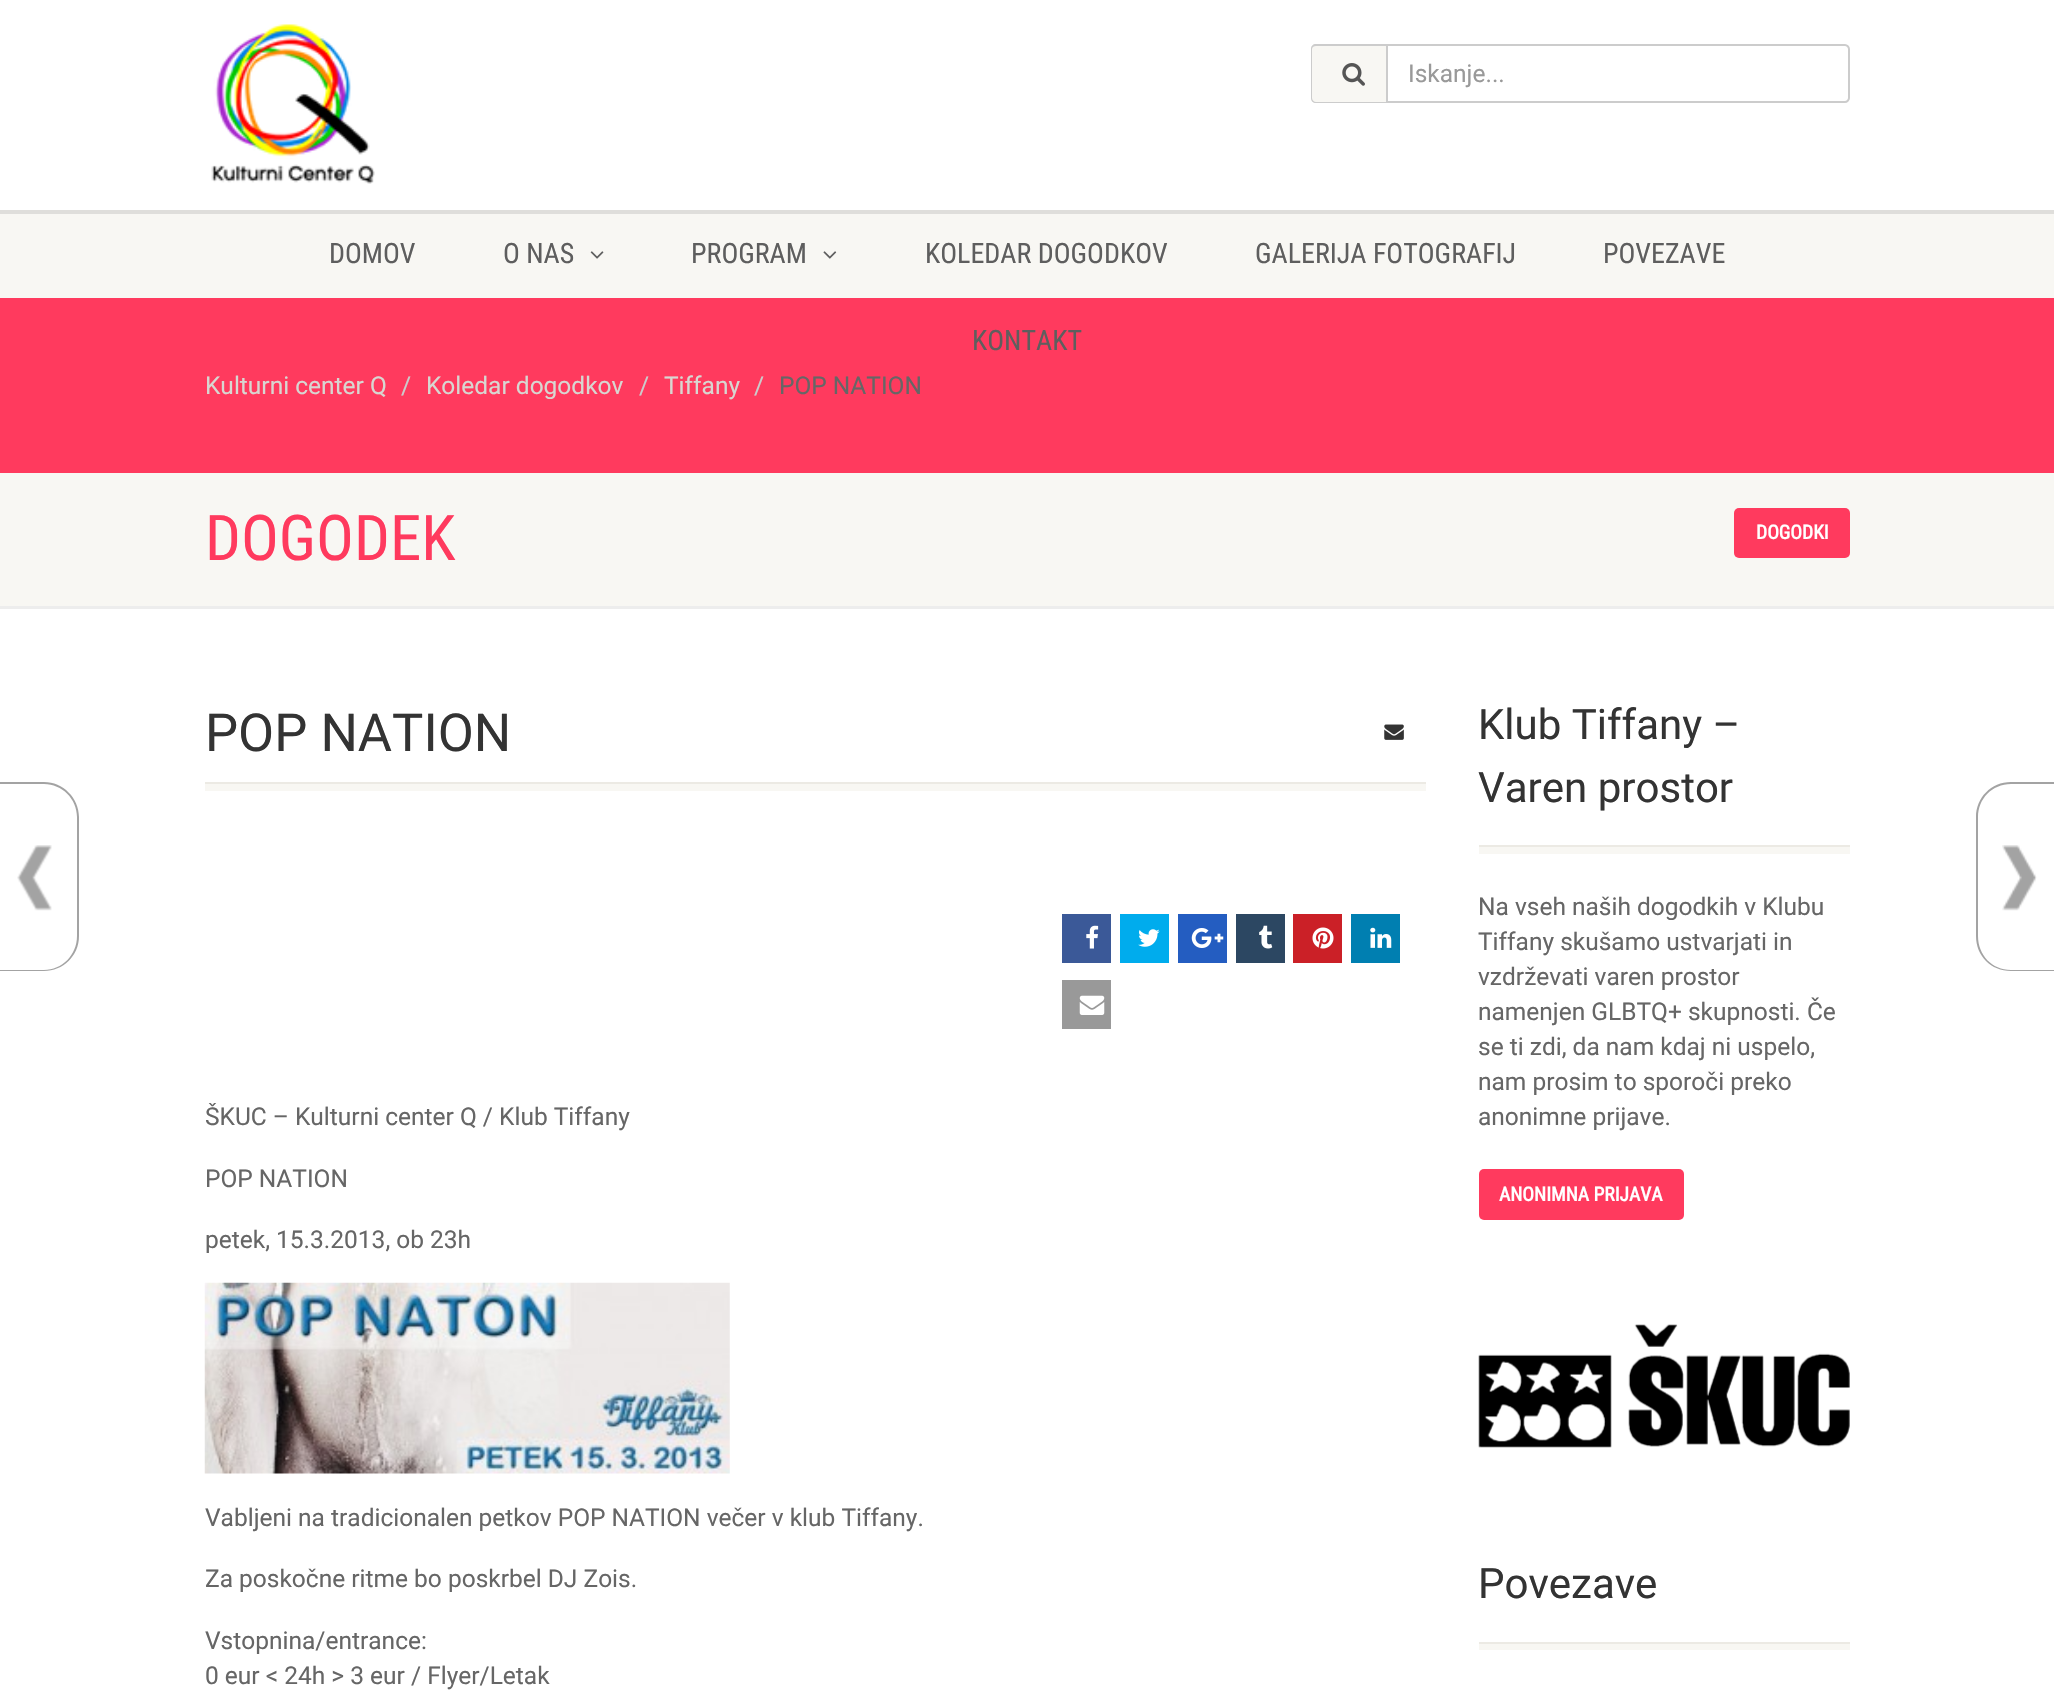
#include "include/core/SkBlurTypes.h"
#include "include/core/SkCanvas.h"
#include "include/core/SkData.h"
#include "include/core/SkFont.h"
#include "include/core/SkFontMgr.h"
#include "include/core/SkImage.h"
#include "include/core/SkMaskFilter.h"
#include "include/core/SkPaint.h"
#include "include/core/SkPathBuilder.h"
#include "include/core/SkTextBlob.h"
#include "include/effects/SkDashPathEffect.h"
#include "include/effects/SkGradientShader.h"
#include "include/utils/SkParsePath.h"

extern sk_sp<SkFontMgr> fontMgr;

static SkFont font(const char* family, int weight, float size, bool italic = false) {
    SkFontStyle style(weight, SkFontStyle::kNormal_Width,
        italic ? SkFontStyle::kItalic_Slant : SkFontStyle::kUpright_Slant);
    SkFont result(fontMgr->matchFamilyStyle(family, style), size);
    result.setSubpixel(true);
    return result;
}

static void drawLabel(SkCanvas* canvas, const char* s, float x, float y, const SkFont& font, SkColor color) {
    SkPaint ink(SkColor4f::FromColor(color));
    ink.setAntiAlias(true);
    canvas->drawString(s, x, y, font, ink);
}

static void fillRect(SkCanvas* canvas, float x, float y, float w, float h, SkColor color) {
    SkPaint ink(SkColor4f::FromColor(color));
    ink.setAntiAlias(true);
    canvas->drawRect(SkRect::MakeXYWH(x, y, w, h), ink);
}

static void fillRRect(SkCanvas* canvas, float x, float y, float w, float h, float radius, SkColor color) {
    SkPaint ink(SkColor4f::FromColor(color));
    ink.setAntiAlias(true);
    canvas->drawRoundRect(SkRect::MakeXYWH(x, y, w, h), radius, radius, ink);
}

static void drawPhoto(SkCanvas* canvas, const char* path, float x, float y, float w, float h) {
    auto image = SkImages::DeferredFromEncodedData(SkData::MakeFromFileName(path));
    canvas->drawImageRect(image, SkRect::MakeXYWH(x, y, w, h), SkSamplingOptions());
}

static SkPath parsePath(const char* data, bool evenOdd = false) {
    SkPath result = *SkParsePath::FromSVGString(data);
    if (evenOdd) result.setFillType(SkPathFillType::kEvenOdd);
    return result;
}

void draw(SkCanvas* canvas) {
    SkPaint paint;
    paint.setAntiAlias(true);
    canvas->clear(0xFFFFFFFF);
    paint.setColor(0xFFDFDEDB);
    canvas->drawPath(parsePath("M0 210V214H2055V4H2054V210Z"), paint);
    drawPhoto(canvas, "assets/img1.png", 211, 24, 164, 160);
    paint.setColor(0xFFF8F7F3);
    canvas->drawPath(parsePath("M1316 44H1386V103H1316C1313 103 1311 101 1311 98V49C1311 46 1313 44 1316 44Z"), paint);
    paint.setColor(0xFFCCCCCC);
    canvas->drawPath(parsePath("M1316 44H1386V103H1316C1313 103 1311 101 1311 98V49C1311 46 1313 44 1316 44ZM1316 46H1386V102H1316C1314 102 1312 100 1312 98V49C1312 47 1314 46 1316 46Z", true), paint);
    drawPhoto(canvas, "assets/img2.png", 1342, 63, 23, 23);
    paint.setStroke(true);
    paint.setStrokeWidth(2);
    canvas->drawPath(parsePath("M1387 45H1845C1847 45 1849 47 1849 49V98C1849 100 1847 102 1845 102H1387Z"), paint);
    SkFont font1 = font("Roboto", 400, 24.5f);
    drawLabel(canvas, "Iskanje...", 1408, 82, font1, 0xFF999999);
    fillRect(canvas, 0, 214, 2054, 84, 0xFFF8F7F3);
    SkFont font2 = font("Roboto Condensed", 400, 28);
    drawLabel(canvas, "DOMOV", 329, 263, font2, 0xFF5E5E5E);
    drawLabel(canvas, "O NAS", 503, 263, font2, 0xFF5E5E5E);
    drawPhoto(canvas, "assets/img3.png", 590, 251, 14, 8);
    drawLabel(canvas, "PROGRAM", 691, 263, font2, 0xFF5E5E5E);
    drawPhoto(canvas, "assets/img4.png", 823, 251, 14, 8);
    drawLabel(canvas, "KOLEDAR DOGODKOV", 925, 263, font2, 0xFF5E5E5E);
    drawLabel(canvas, "GALERIJA FOTOGRAFIJ", 1255, 263, font2, 0xFF5E5E5E);
    drawLabel(canvas, "POVEZAVE", 1603, 263, font2, 0xFF5E5E5E);
    fillRect(canvas, 0, 298, 2054, 175, 0xFFFF3A5E);
    drawLabel(canvas, "KONTAKT", 972, 350, font2, 0xFF5E5E5E);
    drawLabel(canvas, "Kulturni center Q", 205, 394, font1, 0xFFD8D6D1);
    drawLabel(canvas, "/", 401, 394, font1, 0xFFCCCCCC);
    drawLabel(canvas, "Koledar dogodkov", 426, 394, font1, 0xFFD8D6D1);
    drawLabel(canvas, "/", 639, 394, font1, 0xFFCCCCCC);
    drawLabel(canvas, "Tiffany", 664, 394, font1, 0xFFD8D6D1);
    drawLabel(canvas, "/", 754, 394, font1, 0xFFCCCCCC);
    drawLabel(canvas, "POP NATION", 779, 394, font1, 0xFF666666);
    paint.setStroke(false);
    paint.setColor(0xFFEDEDED);
    canvas->drawPath(parsePath("M0 606V609H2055V476H2054V606Z"), paint);
    fillRect(canvas, 0, 473, 2054, 133, 0xFFF8F7F3);
    SkFont font3 = font("Roboto Condensed", 400, 63);
    drawLabel(canvas, "DOGODEK", 205, 560, font3, 0xFFFF3A5E);
    fillRRect(canvas, 1734, 508, 116, 50, 5, 0xFFFF3A5E);
    SkFont font4 = font("Roboto Condensed", 700, 19.5f);
    drawLabel(canvas, "DOGODKI", 1756, 539, font4, 0xFFFFFFFF);
    fillRect(canvas, 205, 782, 1221, 2, 0xFFECEAE4);
    SkFont font5 = font("Roboto", 400, 52.5f);
    drawLabel(canvas, "POP NATION", 205, 751, font5, 0xFF333333);
    drawPhoto(canvas, "assets/img5.png", 1384, 724, 20, 16);
    fillRect(canvas, 205, 784, 1221, 7, 0xFFF8F7F3);
    fillRect(canvas, 1062, 914, 49, 49, 0xFF3B5998);
    drawPhoto(canvas, "assets/img6.png", 1086, 925, 13, 24);
    fillRect(canvas, 1120, 914, 49, 49, 0xFF00ACED);
    drawPhoto(canvas, "assets/img7.png", 1138, 929, 22, 18);
    fillRect(canvas, 1178, 914, 49, 49, 0xFF245DC1);
    drawPhoto(canvas, "assets/img8.png", 1191, 928, 33, 20);
    fillRect(canvas, 1236, 914, 49, 49, 0xFF2C4762);
    drawPhoto(canvas, "assets/img9.png", 1259, 925, 14, 24);
    fillRect(canvas, 1293, 914, 49, 49, 0xFFCB2027);
    drawPhoto(canvas, "assets/img10.png", 1312, 927, 22, 22);
    fillRect(canvas, 1351, 914, 49, 49, 0xFF007FB1);
    drawPhoto(canvas, "assets/img11.png", 1370, 927, 22, 21);
    fillRect(canvas, 1062, 980, 49, 49, 0xFF999999);
    drawPhoto(canvas, "assets/img12.png", 1079, 995, 26, 20);
    drawLabel(canvas, "ŠKUC – Kulturni center Q / Klub Tiffany", 205, 1125, font1, 0xFF666666);
    drawLabel(canvas, "POP NATION", 205, 1187, font1, 0xFF666666);
    drawLabel(canvas, "petek, 15.3.2013, ob 23h", 205, 1248, font1, 0xFF666666);
    drawPhoto(canvas, "assets/img13.png", 204, 1282, 526, 192);
    drawLabel(canvas, "Vabljeni na tradicionalen petkov POP NATION večer v klub Tiffany.", 205, 1526, font1, 0xFF666666);
    drawLabel(canvas, "Za poskočne ritme bo poskrbel DJ Zois.", 205, 1587, font1, 0xFF666666);
    drawLabel(canvas, "Vstopnina/entrance:", 205, 1649, font1, 0xFF666666);
    drawLabel(canvas, "0 eur < 24h > 3 eur / Flyer/Letak", 205, 1684, font1, 0xFF666666);
    fillRect(canvas, 1479, 847, 371, 7, 0xFFF8F7F3);
    fillRect(canvas, 1479, 845, 371, 2, 0xFFECEAE4);
    SkFont font6 = font("Roboto", 400, 42);
    drawLabel(canvas, "Klub Tiffany –", 1478, 739, font6, 0xFF333333);
    drawLabel(canvas, "Varen prostor", 1478, 802, font6, 0xFF333333);
    drawLabel(canvas, "Na vseh naših dogodkih v Klubu", 1478, 915, font1, 0xFF666666);
    drawLabel(canvas, "Tiffany skušamo ustvarjati in", 1478, 950, font1, 0xFF666666);
    drawLabel(canvas, "vzdrževati varen prostor", 1478, 985, font1, 0xFF666666);
    drawLabel(canvas, "namenjen GLBTQ+ skupnosti. Če", 1478, 1020, font1, 0xFF666666);
    drawLabel(canvas, "se ti zdi, da nam kdaj ni uspelo,", 1478, 1055, font1, 0xFF666666);
    drawLabel(canvas, "nam prosim to sporoči preko", 1478, 1090, font1, 0xFF666666);
    drawLabel(canvas, "anonimne prijave.", 1478, 1125, font1, 0xFF666666);
    fillRRect(canvas, 1479, 1169, 205, 51, 5, 0xFFFF3A5E);
    drawLabel(canvas, "ANONIMNA PRIJAVA", 1499, 1201, font4, 0xFFFFFFFF);
    drawPhoto(canvas, "assets/img14.png", 1478, 1324, 372, 124);
    fillRect(canvas, 1479, 1644, 371, 6, 0xFFF8F7F3);
    fillRect(canvas, 1479, 1642, 371, 2, 0xFFECEAE4);
    drawLabel(canvas, "Povezave", 1478, 1598, font6, 0xFF333333);
    paint.setColor(0xFFA3A3A3);
    canvas->drawPath(parsePath("M-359 782H44C63 782 79 798 79 817V936C79 956 63 971 44 971H-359ZM-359 784H44C62 784 77 799 77 817V936C77 955 62 970 44 970H-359Z", true), paint);
    drawPhoto(canvas, "assets/img15.png", 17, 845, 35, 66);
    canvas->drawPath(parsePath("M2011 782H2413V971H2011C1991 971 1976 956 1976 936V817C1976 798 1991 782 2011 782ZM2011 784H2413V970H2011C1992 970 1978 955 1978 936V817C1978 799 1992 784 2011 784Z", true), paint);
    drawPhoto(canvas, "assets/img16.png", 2002, 845, 35, 66);
}
